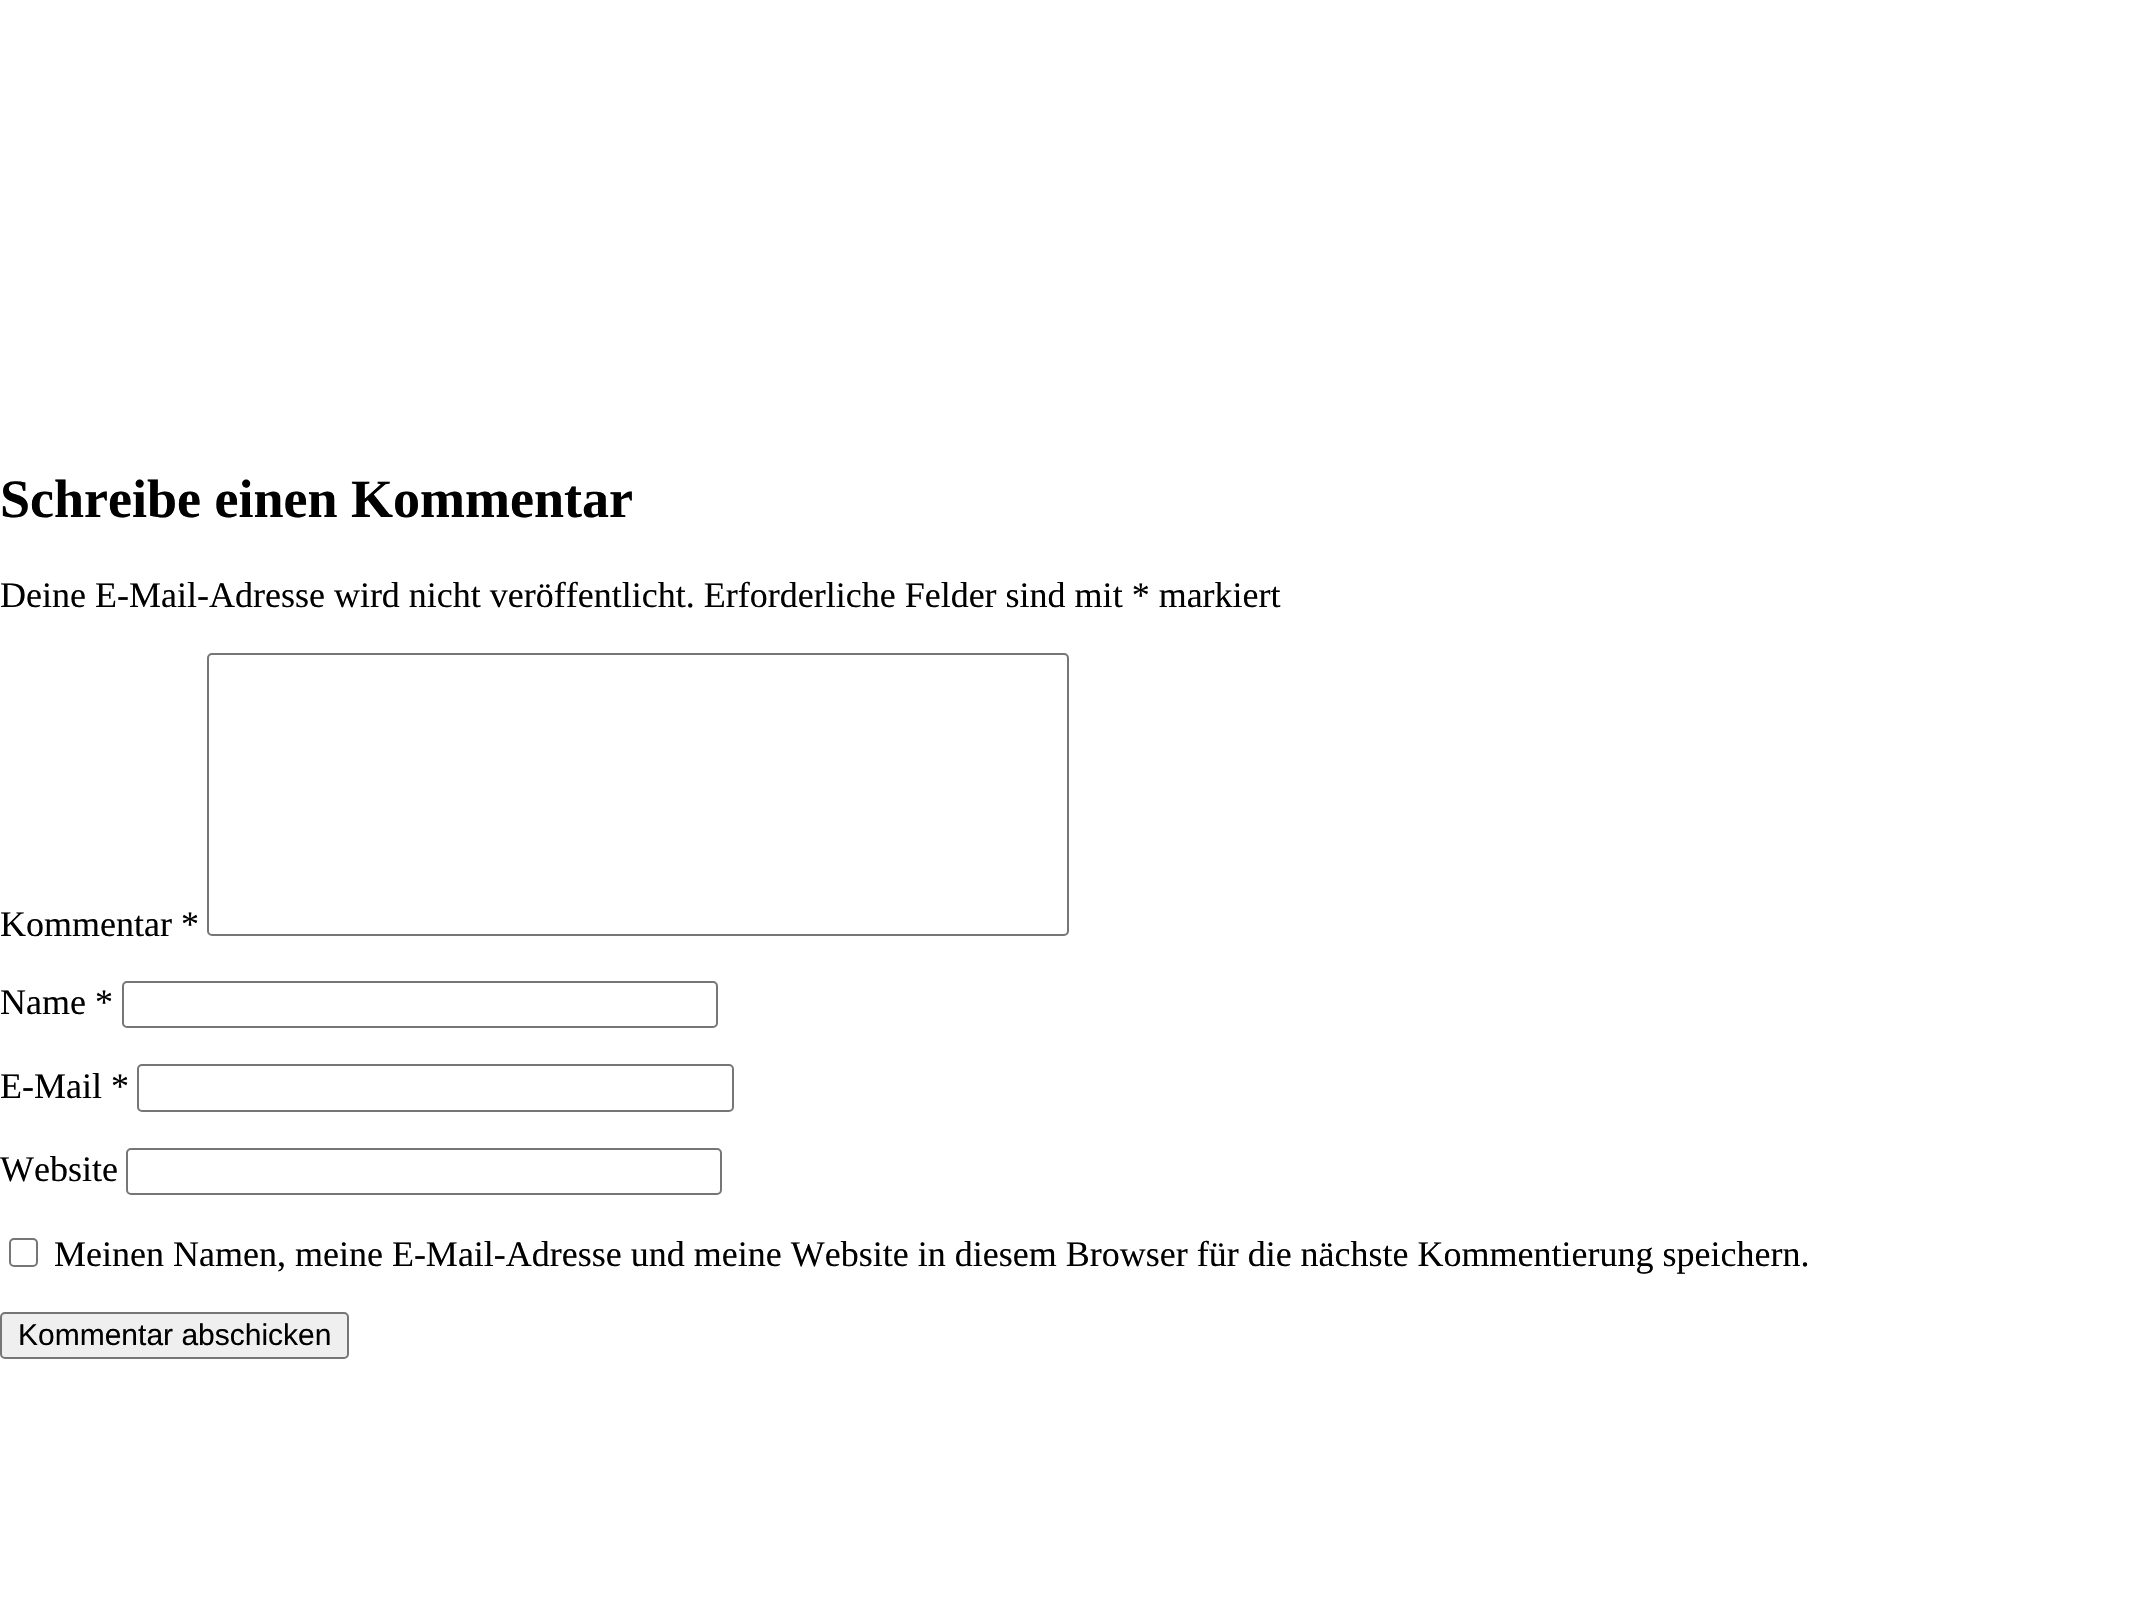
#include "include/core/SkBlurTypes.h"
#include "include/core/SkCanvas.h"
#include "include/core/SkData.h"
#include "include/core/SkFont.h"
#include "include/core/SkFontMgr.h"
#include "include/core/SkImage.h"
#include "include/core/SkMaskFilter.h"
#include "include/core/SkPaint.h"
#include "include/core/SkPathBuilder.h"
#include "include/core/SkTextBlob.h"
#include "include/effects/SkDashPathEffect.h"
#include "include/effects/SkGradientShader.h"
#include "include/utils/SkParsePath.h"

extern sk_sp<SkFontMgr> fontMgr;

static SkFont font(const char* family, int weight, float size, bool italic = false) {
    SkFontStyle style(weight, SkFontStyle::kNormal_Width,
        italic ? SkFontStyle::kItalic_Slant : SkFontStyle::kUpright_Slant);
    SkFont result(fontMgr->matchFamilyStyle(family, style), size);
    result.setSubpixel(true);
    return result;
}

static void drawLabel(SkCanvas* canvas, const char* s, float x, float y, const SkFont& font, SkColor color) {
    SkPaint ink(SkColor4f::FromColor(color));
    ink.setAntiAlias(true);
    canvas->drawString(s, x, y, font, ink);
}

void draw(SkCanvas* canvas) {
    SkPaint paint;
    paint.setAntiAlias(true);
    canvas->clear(0xFFFFFFFF);
    SkFont font1 = font("Liberation Serif", 700, 54);
    drawLabel(canvas, "Schreibe einen Kommentar", 0, 517, font1, 0xFF000000);
    SkFont font2 = font("Liberation Serif", 400, 36);
    drawLabel(canvas, "Deine E-Mail-Adresse wird nicht veröffentlicht. Erforderliche Felder sind mit * markiert", 0, 607, font2, 0xFF000000);
    drawLabel(canvas, "Kommentar *", 0, 936, font2, 0xFF000000);
    paint.setStroke(true);
    paint.setStrokeWidth(2);
    paint.setColor(0xFF767676);
    canvas->drawRoundRect(SkRect::MakeXYWH(208, 654, 860, 281), 4, 4, paint);
    drawLabel(canvas, "Name *", 0, 1014, font2, 0xFF000000);
    canvas->drawRoundRect(SkRect::MakeXYWH(123, 982, 594, 45), 4, 4, paint);
    drawLabel(canvas, "E-Mail *", 0, 1098, font2, 0xFF000000);
    canvas->drawRoundRect(SkRect::MakeXYWH(138, 1065, 595, 46), 4, 4, paint);
    drawLabel(canvas, "Website", 0, 1181, font2, 0xFF000000);
    canvas->drawRoundRect(SkRect::MakeXYWH(127, 1149, 594, 45), 4, 4, paint);
    canvas->drawRoundRect(SkRect::MakeXYWH(10, 1239, 27, 27), 4, 4, paint);
    drawLabel(canvas, "Meinen Namen, meine E-Mail-Adresse und meine Website in diesem Browser für die nächste Kommentierung speichern.", 54, 1266, font2, 0xFF000000);
    paint.setStroke(false);
    paint.setColor(0xFFEFEFEF);
    canvas->drawRoundRect(SkRect::MakeXYWH(1, 1313, 347, 45), 4, 4, paint);
    paint.setStroke(true);
    paint.setColor(0xFF767676);
    canvas->drawRoundRect(SkRect::MakeXYWH(1, 1313, 347, 45), 4, 4, paint);
    SkFont font3 = font("Liberation Sans", 400, 30);
    drawLabel(canvas, "Kommentar abschicken", 18, 1345, font3, 0xFF000000);
}
